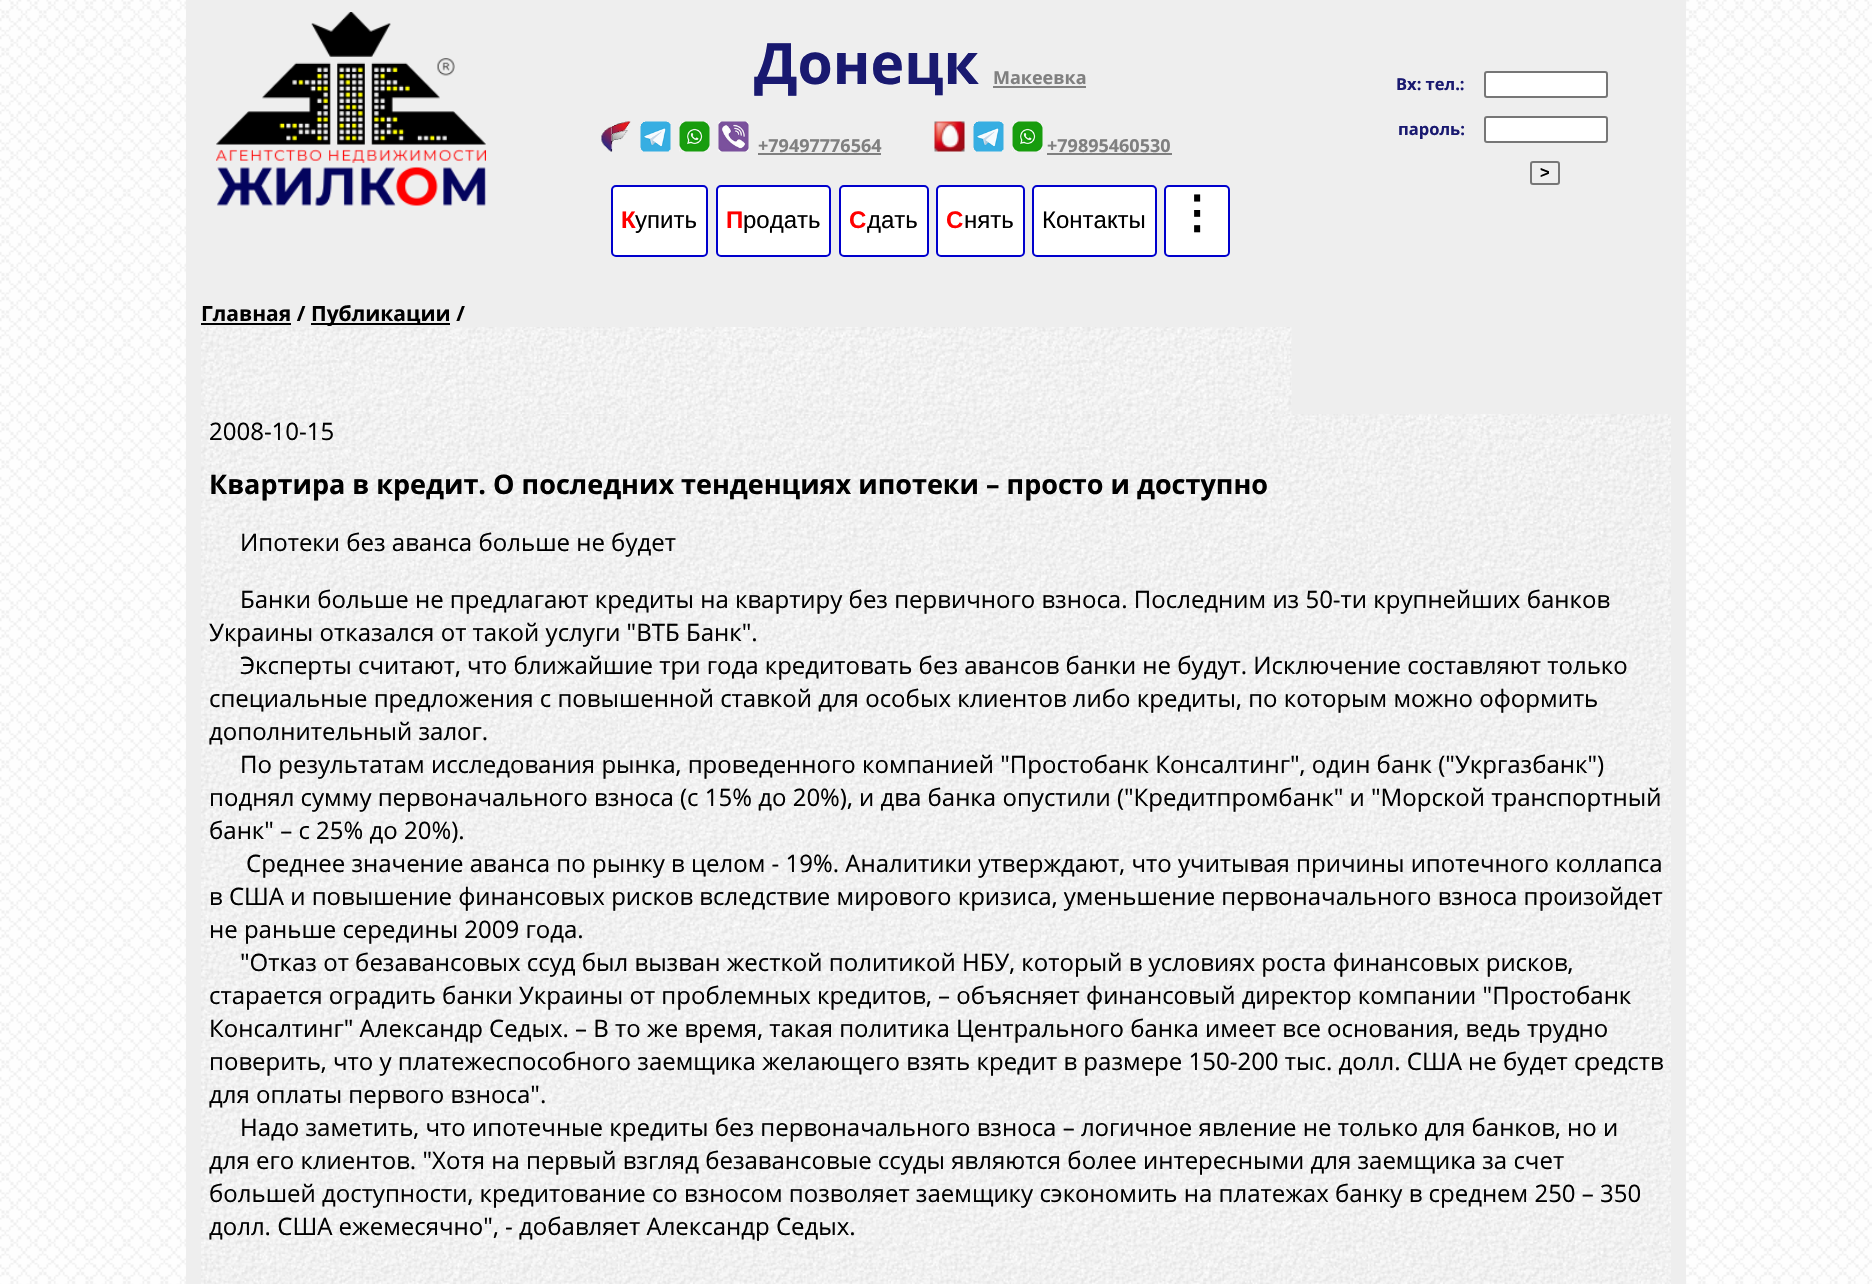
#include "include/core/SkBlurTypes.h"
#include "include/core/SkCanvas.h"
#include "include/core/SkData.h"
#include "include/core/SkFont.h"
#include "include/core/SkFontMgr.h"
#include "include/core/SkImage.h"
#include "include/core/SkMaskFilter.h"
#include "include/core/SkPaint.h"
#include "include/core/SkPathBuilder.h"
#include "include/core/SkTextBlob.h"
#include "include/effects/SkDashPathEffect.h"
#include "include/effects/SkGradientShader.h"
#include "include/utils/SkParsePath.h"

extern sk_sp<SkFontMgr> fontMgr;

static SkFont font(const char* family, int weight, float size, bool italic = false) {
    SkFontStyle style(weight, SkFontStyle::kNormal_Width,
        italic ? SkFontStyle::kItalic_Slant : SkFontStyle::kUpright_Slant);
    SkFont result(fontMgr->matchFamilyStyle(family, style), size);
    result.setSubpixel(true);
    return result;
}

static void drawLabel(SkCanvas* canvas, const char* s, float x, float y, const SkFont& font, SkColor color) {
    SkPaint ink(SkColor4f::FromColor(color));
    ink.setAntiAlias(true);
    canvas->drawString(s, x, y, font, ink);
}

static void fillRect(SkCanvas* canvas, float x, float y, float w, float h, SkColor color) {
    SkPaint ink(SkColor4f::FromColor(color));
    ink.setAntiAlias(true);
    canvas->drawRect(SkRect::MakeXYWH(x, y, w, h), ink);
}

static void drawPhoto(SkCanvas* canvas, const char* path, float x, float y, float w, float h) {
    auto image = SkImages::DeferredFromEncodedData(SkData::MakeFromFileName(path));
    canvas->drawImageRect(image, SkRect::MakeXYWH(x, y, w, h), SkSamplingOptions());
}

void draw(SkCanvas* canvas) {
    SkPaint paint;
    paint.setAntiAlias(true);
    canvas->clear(0xFFFFFFFF);
    drawPhoto(canvas, "assets/img1.png", 0, 0, 1872, 1284);
    fillRect(canvas, 186, 0, 1500, 1284, 0xFFEEEEEE);
    SkFont font1 = font("Open Sans", 700, 57);
    drawLabel(canvas, "Донецк", 754, 84, font1, 0xFF191970);
    SkFont font2 = font("Open Sans", 700, 18);
    drawLabel(canvas, "Макеевка", 993, 84, font2, 0xFF808080);
    fillRect(canvas, 993, 86, 93, 2, 0xFF808080);
    drawPhoto(canvas, "assets/img2.png", 601, 121, 30, 31);
    drawPhoto(canvas, "assets/img3.png", 640, 121, 31, 31);
    drawPhoto(canvas, "assets/img4.png", 679, 121, 31, 31);
    drawPhoto(canvas, "assets/img5.png", 718, 121, 31, 31);
    drawLabel(canvas, "+79497776564", 758, 152, font2, 0xFF808080);
    fillRect(canvas, 758, 153, 123, 2, 0xFF808080);
    drawPhoto(canvas, "assets/img6.png", 934, 121, 31, 31);
    drawPhoto(canvas, "assets/img3.png", 973, 121, 31, 31);
    drawPhoto(canvas, "assets/img4.png", 1012, 121, 31, 31);
    drawLabel(canvas, "+79895460530", 1047, 152, font2, 0xFF808080);
    fillRect(canvas, 1047, 153, 125, 2, 0xFF808080);
    drawPhoto(canvas, "assets/img7.png", 216, 12, 270, 194);
    SkFont font3 = font("Open Sans", 700, 16.5f);
    drawLabel(canvas, "Вх: тел.:", 1396, 90, font3, 0xFF191970);
    paint.setColor(0xFFFFFFFF);
    canvas->drawRoundRect(SkRect::MakeXYWH(1485, 72, 122, 25), 2, 2, paint);
    paint.setStroke(true);
    paint.setStrokeWidth(2);
    paint.setColor(0xFF767676);
    canvas->drawRoundRect(SkRect::MakeXYWH(1485, 72, 122, 25), 2, 2, paint);
    drawLabel(canvas, "пароль:", 1398, 135, font3, 0xFF191970);
    paint.setStroke(false);
    paint.setColor(0xFFFFFFFF);
    canvas->drawRoundRect(SkRect::MakeXYWH(1485, 117, 122, 25), 2, 2, paint);
    paint.setStroke(true);
    paint.setColor(0xFF767676);
    canvas->drawRoundRect(SkRect::MakeXYWH(1485, 117, 122, 25), 2, 2, paint);
    canvas->drawRoundRect(SkRect::MakeXYWH(1531, 162, 28, 22), 2, 2, paint);
    SkFont font4 = font("Liberation Sans", 700, 16.5f);
    drawLabel(canvas, ">", 1540, 178, font4, 0xFF000000);
    paint.setStroke(false);
    paint.setColor(0xFFFFFFFF);
    canvas->drawRoundRect(SkRect::MakeXYWH(612, 186, 95, 70), 4, 4, paint);
    paint.setStroke(true);
    paint.setColor(0xFF0000CD);
    canvas->drawRoundRect(SkRect::MakeXYWH(612, 186, 95, 70), 4, 4, paint);
    SkFont font5 = font("Liberation Sans", 700, 24);
    drawLabel(canvas, "К", 621, 228, font5, 0xFFFF0000);
    SkFont font6 = font("Liberation Sans", 400, 24);
    drawLabel(canvas, "упить", 635, 228, font6, 0xFF000000);
    paint.setStroke(false);
    paint.setColor(0xFFFFFFFF);
    canvas->drawRoundRect(SkRect::MakeXYWH(717, 186, 113, 70), 4, 4, paint);
    paint.setStroke(true);
    paint.setColor(0xFF0000CD);
    canvas->drawRoundRect(SkRect::MakeXYWH(717, 186, 113, 70), 4, 4, paint);
    drawLabel(canvas, "П", 726, 228, font5, 0xFFFF0000);
    drawLabel(canvas, "родать", 743, 228, font6, 0xFF000000);
    paint.setStroke(false);
    paint.setColor(0xFFFFFFFF);
    canvas->drawRoundRect(SkRect::MakeXYWH(840, 186, 88, 70), 4, 4, paint);
    paint.setStroke(true);
    paint.setColor(0xFF0000CD);
    canvas->drawRoundRect(SkRect::MakeXYWH(840, 186, 88, 70), 4, 4, paint);
    drawLabel(canvas, "С", 849, 228, font5, 0xFFFF0000);
    drawLabel(canvas, "дать", 867, 228, font6, 0xFF000000);
    paint.setStroke(false);
    paint.setColor(0xFFFFFFFF);
    canvas->drawRoundRect(SkRect::MakeXYWH(937, 186, 87, 70), 4, 4, paint);
    paint.setStroke(true);
    paint.setColor(0xFF0000CD);
    canvas->drawRoundRect(SkRect::MakeXYWH(937, 186, 87, 70), 4, 4, paint);
    drawLabel(canvas, "С", 946, 228, font5, 0xFFFF0000);
    drawLabel(canvas, "нять", 964, 228, font6, 0xFF000000);
    paint.setStroke(false);
    paint.setColor(0xFFFFFFFF);
    canvas->drawRoundRect(SkRect::MakeXYWH(1033, 186, 123, 70), 4, 4, paint);
    paint.setStroke(true);
    paint.setColor(0xFF0000CD);
    canvas->drawRoundRect(SkRect::MakeXYWH(1033, 186, 123, 70), 4, 4, paint);
    drawLabel(canvas, "Контакты", 1042, 228, font6, 0xFF000000);
    paint.setStroke(false);
    paint.setColor(0xFFFFFFFF);
    canvas->drawRoundRect(SkRect::MakeXYWH(1165, 186, 64, 70), 4, 4, paint);
    paint.setStroke(true);
    paint.setColor(0xFF0000CD);
    canvas->drawRoundRect(SkRect::MakeXYWH(1165, 186, 64, 70), 4, 4, paint);
    SkFont font7 = font("DejaVu Sans", 700, 45);
    drawLabel(canvas, "⋮", 1174, 228, font7, 0xFF000000);
    SkFont font8 = font("Open Sans", 700, 21);
    drawLabel(canvas, "Главная /", 201, 321, font8, 0xFF000000);
    fillRect(canvas, 201, 323, 90, 2, 0xFF000000);
    fillRect(canvas, 311, 323, 139, 2, 0xFF000000);
    drawLabel(canvas, "Публикации /", 311, 321, font8, 0xFF000000);
    drawPhoto(canvas, "assets/img8.png", 201, 327, 1091, 87);
    drawPhoto(canvas, "assets/img9.png", 201, 414, 1470, 870);
    SkFont font9 = font("Open Sans", 400, 24);
    drawLabel(canvas, "2008-10-15", 209, 440, font9, 0xFF000000);
    SkFont font10 = font("Open Sans", 700, 27);
    drawLabel(canvas, "Квартира в кредит. О последних тенденциях ипотеки – просто и доступно", 209, 494, font10, 0xFF000000);
    drawLabel(canvas, "Ипотеки без аванса больше не будет", 240, 551, font9, 0xFF000000);
    drawLabel(canvas, "Банки больше не предлагают кредиты на квартиру без первичного взноса. Последним из 50-ти крупнейших банков", 240, 608, font9, 0xFF000000);
    drawLabel(canvas, "Украины отказался от такой услуги \"ВТБ Банк\".", 209, 641, font9, 0xFF000000);
    drawLabel(canvas, "Эксперты считают, что ближайшие три года кредитовать без авансов банки не будут. Исключение составляют только", 240, 674, font9, 0xFF000000);
    drawLabel(canvas, "специальные предложения с повышенной ставкой для особых клиентов либо кредиты, по которым можно оформить", 209, 707, font9, 0xFF000000);
    drawLabel(canvas, "дополнительный залог.", 209, 740, font9, 0xFF000000);
    drawLabel(canvas, "По результатам исследования рынка, проведенного компанией \"Простобанк Консалтинг\", один банк (\"Укргазбанк\")", 240, 773, font9, 0xFF000000);
    drawLabel(canvas, "поднял сумму первоначального взноса (с 15% до 20%), и два банка опустили (\"Кредитпромбанк\" и \"Морской транспортный", 209, 806, font9, 0xFF000000);
    drawLabel(canvas, "банк\" – с 25% до 20%).", 209, 839, font9, 0xFF000000);
    drawLabel(canvas, "Среднее значение аванса по рынку в целом - 19%. Аналитики утверждают, что учитывая причины ипотечного коллапса", 246, 872, font9, 0xFF000000);
    drawLabel(canvas, "в США и повышение финансовых рисков вследствие мирового кризиса, уменьшение первоначального взноса произойдет", 209, 905, font9, 0xFF000000);
    drawLabel(canvas, "не раньше середины 2009 года.", 209, 938, font9, 0xFF000000);
    drawLabel(canvas, "\"Отказ от безавансовых ссуд был вызван жесткой политикой НБУ, который в условиях роста финансовых рисков,", 240, 971, font9, 0xFF000000);
    drawLabel(canvas, "старается оградить банки Украины от проблемных кредитов, – объясняет финансовый директор компании \"Простобанк", 209, 1004, font9, 0xFF000000);
    drawLabel(canvas, "Консалтинг\" Александр Седых. – В то же время, такая политика Центрального банка имеет все основания, ведь трудно", 209, 1037, font9, 0xFF000000);
    drawLabel(canvas, "поверить, что у платежеспособного заемщика желающего взять кредит в размере 150-200 тыс. долл. США не будет средств", 209, 1070, font9, 0xFF000000);
    drawLabel(canvas, "для оплаты первого взноса\".", 209, 1103, font9, 0xFF000000);
    drawLabel(canvas, "Надо заметить, что ипотечные кредиты без первоначального взноса – логичное явление не только для банков, но и", 240, 1136, font9, 0xFF000000);
    drawLabel(canvas, "для его клиентов. \"Хотя на первый взгляд безавансовые ссуды являются более интересными для заемщика за счет", 209, 1169, font9, 0xFF000000);
    drawLabel(canvas, "большей доступности, кредитование со взносом позволяет заемщику сэкономить на платежах банку в среднем 250 – 350", 209, 1202, font9, 0xFF000000);
    drawLabel(canvas, "долл. США ежемесячно\", - добавляет Александр Седых.", 209, 1235, font9, 0xFF000000);
}
